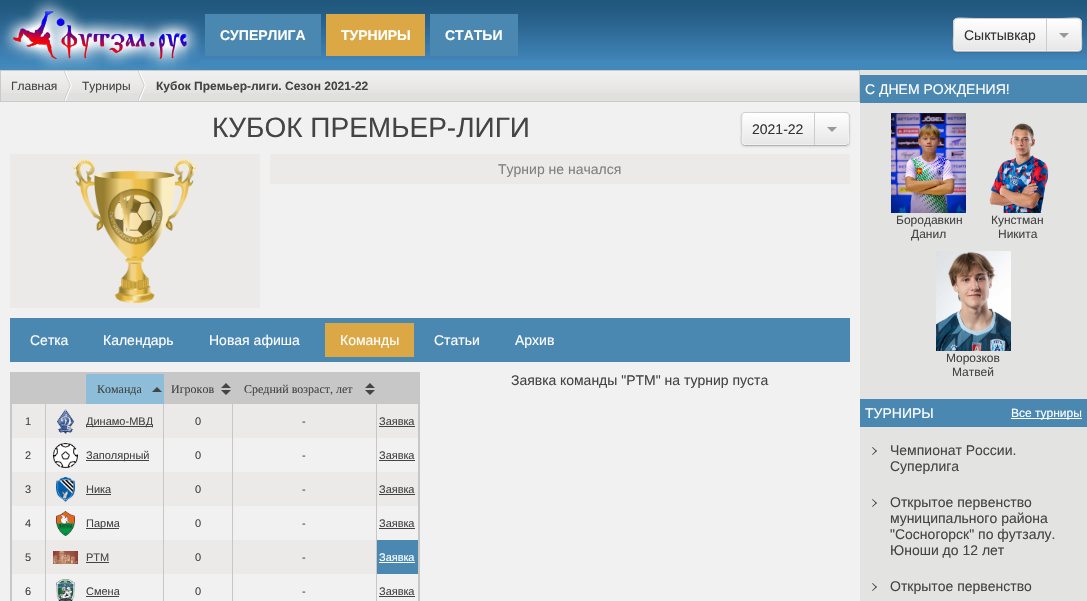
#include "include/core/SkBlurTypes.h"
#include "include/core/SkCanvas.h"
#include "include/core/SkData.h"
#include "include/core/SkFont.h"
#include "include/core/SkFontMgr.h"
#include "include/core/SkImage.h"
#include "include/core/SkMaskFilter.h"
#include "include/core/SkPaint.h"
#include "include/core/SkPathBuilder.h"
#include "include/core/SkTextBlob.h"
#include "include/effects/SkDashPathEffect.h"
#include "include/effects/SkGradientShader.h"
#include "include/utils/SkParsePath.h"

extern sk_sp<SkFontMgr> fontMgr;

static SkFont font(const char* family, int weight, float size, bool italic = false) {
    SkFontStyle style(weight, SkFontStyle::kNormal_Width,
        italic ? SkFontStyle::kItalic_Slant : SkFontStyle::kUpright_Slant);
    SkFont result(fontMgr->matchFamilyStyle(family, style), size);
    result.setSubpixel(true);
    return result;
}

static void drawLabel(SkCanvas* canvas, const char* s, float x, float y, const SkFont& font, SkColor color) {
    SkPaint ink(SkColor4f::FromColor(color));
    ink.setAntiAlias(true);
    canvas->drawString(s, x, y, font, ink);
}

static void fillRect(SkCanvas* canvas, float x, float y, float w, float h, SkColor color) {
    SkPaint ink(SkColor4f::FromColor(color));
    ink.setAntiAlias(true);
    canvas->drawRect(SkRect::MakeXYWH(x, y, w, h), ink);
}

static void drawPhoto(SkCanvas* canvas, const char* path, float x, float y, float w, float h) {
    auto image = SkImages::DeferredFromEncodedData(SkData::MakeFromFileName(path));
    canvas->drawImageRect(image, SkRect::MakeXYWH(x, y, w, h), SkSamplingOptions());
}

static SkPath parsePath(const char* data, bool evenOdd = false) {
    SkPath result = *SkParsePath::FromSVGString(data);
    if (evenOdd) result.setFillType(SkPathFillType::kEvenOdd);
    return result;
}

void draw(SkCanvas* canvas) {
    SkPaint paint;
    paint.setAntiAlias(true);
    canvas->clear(0xFFF1F1F1);
    fillRect(canvas, 201, 60, 886, 10, 0xFF4189BB);
    drawPhoto(canvas, "assets/img1.png", 201, 0, 886, 60);
    drawPhoto(canvas, "assets/img2.png", 0, 0, 201, 70);
    fillRect(canvas, 205, 14, 116, 42, 0xFF4A88B1);
    SkFont font1 = font("Liberation Sans", 700, 14);
    drawLabel(canvas, "СУПЕРЛИГА", 220, 40, font1, 0xFFFFFFFF);
    fillRect(canvas, 326, 14, 99, 42, 0xFFDCA845);
    drawLabel(canvas, "ТУРНИРЫ", 341, 40, font1, 0xFFFFFFFF);
    fillRect(canvas, 430, 14, 88, 42, 0xFF4A88B1);
    drawLabel(canvas, "СТАТЬИ", 445, 40, font1, 0xFFFFFFFF);
    paint.setColor(0x1A000000);
    paint.setMaskFilter(SkMaskFilter::MakeBlur(kNormal_SkBlurStyle, 1));
    canvas->drawRoundRect(SkRect::MakeXYWH(953, 19, 129, 34), 4, 4, paint);
    paint.setMaskFilter(nullptr);
    canvas->save();
    canvas->clipPath(parsePath("M957 18H1078C1080 18 1082 20 1082 22V48C1082 50 1080 52 1078 52H957C955 52 953 50 953 48V22C953 20 955 18 957 18Z"), true);
    {
        const SkColor colors[] = {0xFFFFFFFF, 0xFFE6E6E6};
        const float stops[] = {0, 1};
        const SkPoint ends[] = {{1018, -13}, {1018, 19}};
        paint.setShader(SkGradientShader::MakeLinear(ends, colors, stops, 2, SkTileMode::kClamp));
        paint.setAlpha(255);
    }
    canvas->drawRect(SkRect::MakeXYWH(953, 18, 129, 1), paint);
    {
        const SkColor colors[] = {0xFFFFFFFF, 0xFFE6E6E6};
        const float stops[] = {0, 1};
        const SkPoint ends[] = {{1018, 19}, {1018, 51}};
        paint.setShader(SkGradientShader::MakeLinear(ends, colors, stops, 2, SkTileMode::kClamp));
        paint.setAlpha(255);
    }
    canvas->drawRect(SkRect::MakeXYWH(953, 19, 129, 32), paint);
    canvas->restore();
    paint.setShader(nullptr);
    paint.setColor(0xFFF1F1F1);
    canvas->drawPath(parsePath("M1077 51C1082 51 1081 47.5 1081 43.5V26.5C1081 22.5 1082 19 1077 19C1079 19 1080 20 1080 22V48C1080 50 1079 51 1077 51Z"), paint);
    canvas->drawPath(parsePath("M955 20C953 21 954 32 954 35C954 56 951 51 977 51H1078L1080 50H958C953 50 955 41 955 38Z"), paint);
    paint.setStroke(true);
    paint.setStrokeWidth(1);
    paint.setColor(0xFFB3B3B3);
    canvas->drawPath(parsePath("M1080.5 50.5C1080 51 1079 51.5 1078 51.5H957C956 51.5 955 51 954.5 50.5"), paint);
    paint.setColor(0xFFCCCCCC);
    canvas->drawPath(parsePath("M954.5 50.5C952.5 48 953.5 38 953.5 35C953.5 13.5 951.5 18.5 977 18.5H1058C1083.5 18.5 1081.5 13.5 1081.5 35C1081.5 38 1082.5 48 1080.5 50.5"), paint);
    SkFont font2 = font("Liberation Sans", 400, 14);
    drawLabel(canvas, "Сыктывкар", 964, 40, font2, 0xFF333333);
    fillRect(canvas, 1046, 19, 1, 32, 0xFFCCCCCC);
    paint.setStroke(false);
    paint.setColor(0xFF999999);
    canvas->drawPath(parsePath("M1059 33H1069L1064 38Z"), paint);
    fillRect(canvas, 1, 93, 858, 8, 0xFFE0E0DE);
    drawPhoto(canvas, "assets/img3.png", 1, 71, 858, 22);
    paint.setStroke(true);
    paint.setColor(0xFFCACACA);
    canvas->drawRect(SkRect::MakeXYWH(0.5f, 70.5f, 859, 31), paint);
    drawPhoto(canvas, "assets/img4.png", 64, 71, 8, 30);
    SkFont font3 = font("Liberation Sans", 400, 12);
    drawLabel(canvas, "Главная", 11, 90, font3, 0xFF444444);
    drawPhoto(canvas, "assets/img4.png", 138, 71, 8, 30);
    drawLabel(canvas, "Турниры", 82, 90, font3, 0xFF444444);
    SkFont font4 = font("Liberation Sans", 700, 12);
    drawLabel(canvas, "Кубок Премьер-лиги. Сезон 2021-22", 156, 90, font4, 0xFF444444);
    SkFont font5 = font("Liberation Sans", 400, 28);
    drawLabel(canvas, "КУБОК ПРЕМЬЕР-ЛИГИ", 212, 137, font5, 0xFF444444);
    paint.setStroke(false);
    paint.setColor(0x1A000000);
    paint.setMaskFilter(SkMaskFilter::MakeBlur(kNormal_SkBlurStyle, 1));
    canvas->drawRoundRect(SkRect::MakeXYWH(741, 113, 109, 34), 4, 4, paint);
    paint.setMaskFilter(nullptr);
    canvas->save();
    canvas->clipPath(parsePath("M745 112H846C848 112 850 114 850 116V142C850 144 848 146 846 146H745C743 146 741 144 741 142V116C741 114 743 112 745 112Z"), true);
    {
        const SkColor colors[] = {0xFFFFFFFF, 0xFFE6E6E6};
        const float stops[] = {0, 1};
        const SkPoint ends[] = {{796, 81}, {796, 113}};
        paint.setShader(SkGradientShader::MakeLinear(ends, colors, stops, 2, SkTileMode::kClamp));
        paint.setAlpha(255);
    }
    canvas->drawRect(SkRect::MakeXYWH(741, 112, 109, 1), paint);
    {
        const SkColor colors[] = {0xFFFFFFFF, 0xFFE6E6E6};
        const float stops[] = {0, 1};
        const SkPoint ends[] = {{796, 113}, {796, 145}};
        paint.setShader(SkGradientShader::MakeLinear(ends, colors, stops, 2, SkTileMode::kClamp));
        paint.setAlpha(255);
    }
    canvas->drawRect(SkRect::MakeXYWH(741, 113, 109, 32), paint);
    {
        const SkColor colors[] = {0xFFFFFFFF, 0xFFE6E6E6};
        const float stops[] = {0, 1};
        const SkPoint ends[] = {{796, 145}, {796, 177}};
        paint.setShader(SkGradientShader::MakeLinear(ends, colors, stops, 2, SkTileMode::kClamp));
        paint.setAlpha(255);
    }
    canvas->drawRect(SkRect::MakeXYWH(741, 145, 109, 1), paint);
    canvas->restore();
    paint.setShader(nullptr);
    paint.setColor(0xFFF1F1F1);
    canvas->drawPath(parsePath("M845 145C850 145 849 141.5 849 137.5V120.5C849 116.5 850 113 845 113C847 113 848 114 848 116V142C848 144 847 145 845 145Z"), paint);
    canvas->drawPath(parsePath("M743 114C741 115 742 126 742 129C742 149 739 145 762 145H846L848 144H746C741 144 743 135 743 132Z"), paint);
    paint.setStroke(true);
    paint.setColor(0xFFB3B3B3);
    canvas->drawPath(parsePath("M848.5 144.5L846 145.5H744.5L742.5 144.5"), paint);
    canvas->save();
    canvas->clipRect(SkRect::MakeXYWH(10, 112, 840, 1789));
    paint.setColor(0xFFCCCCCC);
    canvas->drawPath(parsePath("M742.5 144.5C740 142 741.5 136 741.5 133.5C741.5 109 737 112.5 762 112.5H829C854 112.5 849.5 109 849.5 133.5C849.5 136 851 142 848.5 144.5"), paint);
    canvas->restore();
    drawLabel(canvas, "2021-22", 752, 134, font2, 0xFF333333);
    fillRect(canvas, 814, 113, 1, 32, 0xFFCCCCCC);
    paint.setStroke(false);
    paint.setColor(0xFF999999);
    canvas->drawPath(parsePath("M827 127H837L832 132Z"), paint);
    fillRect(canvas, 10, 154, 250, 154, 0xFFEBEAE9);
    drawPhoto(canvas, "assets/img5.png", 70, 159, 129, 144);
    fillRect(canvas, 270, 154, 580, 30, 0xFFEBEAE9);
    drawLabel(canvas, "Турнир не начался", 498, 174, font2, 0xFF808080);
    fillRect(canvas, 10, 318, 840, 44, 0xFF4A88B1);
    drawLabel(canvas, "Сетка", 30, 345, font2, 0xFFFFFFFF);
    drawLabel(canvas, "Календарь", 103, 345, font2, 0xFFFFFFFF);
    drawLabel(canvas, "Новая афиша", 209, 345, font2, 0xFFFFFFFF);
    fillRect(canvas, 325, 323, 89, 34, 0xFFDCA845);
    drawLabel(canvas, "Команды", 340, 345, font2, 0xFFFFFFFF);
    drawLabel(canvas, "Статьи", 434, 345, font2, 0xFFFFFFFF);
    drawLabel(canvas, "Архив", 515, 345, font2, 0xFFFFFFFF);
    drawLabel(canvas, "Заявка команды \"РТМ\" на турнир пуста", 511, 385, font2, 0xFF444444);
    paint.setStroke(true);
    paint.setStrokeWidth(2);
    paint.setColor(0xFFC7C7C7);
    canvas->drawRect(SkRect::MakeXYWH(11, 373, 408, 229), paint);
    fillRect(canvas, 12, 374, 74, 30, 0xFFC7C7C7);
    fillRect(canvas, 86, 374, 78, 30, 0xFF8DBDD8);
    SkFont font6 = font("Liberation Serif", 400, 12);
    drawLabel(canvas, "Команда", 97, 393, font6, 0xFF444444);
    paint.setStroke(false);
    paint.setColor(0xFF444444);
    canvas->drawPath(parsePath("M162 392H152L157 387Z"), paint);
    fillRect(canvas, 164, 374, 213, 30, 0xFFC7C7C7);
    drawLabel(canvas, "Игроков", 171, 393, font6, 0xFF444444);
    canvas->drawPath(parsePath("M231 388H221L226 383ZM221 390H231L226 395Z"), paint);
    drawLabel(canvas, "Средний возраст, лет", 244, 393, font6, 0xFF444444);
    canvas->drawPath(parsePath("M375 388H365L370 383ZM365 390H375L370 395Z"), paint);
    fillRect(canvas, 377, 374, 41, 30, 0xFFC7C7C7);
    fillRect(canvas, 12, 404, 406, 34, 0xFFEBEAE9);
    fillRect(canvas, 45, 404, 1, 68, 0xFFC7C7C7);
    SkFont font7 = font("Liberation Sans", 400, 11);
    drawLabel(canvas, "1", 25, 425, font7, 0xFF444444);
    drawPhoto(canvas, "assets/img6.png", 57, 409, 17, 25);
    fillRect(canvas, 163, 404, 1, 68, 0xFFC7C7C7);
    fillRect(canvas, 86, 426, 67, 1, 0xFF444444);
    drawLabel(canvas, "Динамо-МВД", 86, 425, font7, 0xFF444444);
    fillRect(canvas, 232, 404, 1, 68, 0xFFC7C7C7);
    drawLabel(canvas, "0", 195, 425, font7, 0xFF444444);
    fillRect(canvas, 376, 404, 1, 68, 0xFFC7C7C7);
    drawLabel(canvas, "-", 302, 425, font7, 0xFF444444);
    drawLabel(canvas, "Заявка", 379, 425, font7, 0xFF444444);
    fillRect(canvas, 379, 426, 36, 1, 0xFF444444);
    drawLabel(canvas, "2", 25, 459, font7, 0xFF444444);
    drawPhoto(canvas, "assets/img7.png", 53, 443, 25, 25);
    fillRect(canvas, 86, 460, 63, 1, 0xFF444444);
    drawLabel(canvas, "Заполярный", 86, 459, font7, 0xFF444444);
    drawLabel(canvas, "0", 195, 459, font7, 0xFF444444);
    drawLabel(canvas, "-", 302, 459, font7, 0xFF444444);
    drawLabel(canvas, "Заявка", 379, 459, font7, 0xFF444444);
    fillRect(canvas, 379, 460, 36, 1, 0xFF444444);
    fillRect(canvas, 12, 472, 406, 34, 0xFFEBEAE9);
    fillRect(canvas, 45, 472, 1, 68, 0xFFC7C7C7);
    drawLabel(canvas, "3", 25, 493, font7, 0xFF444444);
    drawPhoto(canvas, "assets/img8.png", 56, 477, 19, 25);
    fillRect(canvas, 163, 472, 1, 68, 0xFFC7C7C7);
    drawLabel(canvas, "Ника", 86, 493, font7, 0xFF444444);
    fillRect(canvas, 86, 494, 25, 1, 0xFF444444);
    fillRect(canvas, 232, 472, 1, 68, 0xFFC7C7C7);
    drawLabel(canvas, "0", 195, 493, font7, 0xFF444444);
    fillRect(canvas, 376, 472, 1, 129, 0xFFC7C7C7);
    drawLabel(canvas, "-", 302, 493, font7, 0xFF444444);
    drawLabel(canvas, "Заявка", 379, 493, font7, 0xFF444444);
    fillRect(canvas, 379, 494, 36, 1, 0xFF444444);
    drawLabel(canvas, "4", 25, 527, font7, 0xFF444444);
    drawPhoto(canvas, "assets/img9.png", 56, 511, 19, 25);
    fillRect(canvas, 86, 528, 33, 1, 0xFF444444);
    drawLabel(canvas, "Парма", 86, 527, font7, 0xFF444444);
    drawLabel(canvas, "0", 195, 527, font7, 0xFF444444);
    drawLabel(canvas, "-", 302, 527, font7, 0xFF444444);
    drawLabel(canvas, "Заявка", 379, 527, font7, 0xFF444444);
    fillRect(canvas, 379, 528, 36, 1, 0xFF444444);
    fillRect(canvas, 12, 540, 364, 34, 0xFFEBEAE9);
    fillRect(canvas, 45, 540, 1, 61, 0xFFC7C7C7);
    drawLabel(canvas, "5", 25, 561, font7, 0xFF444444);
    drawPhoto(canvas, "assets/img10.png", 53, 551, 25, 13);
    fillRect(canvas, 163, 540, 1, 61, 0xFFC7C7C7);
    drawLabel(canvas, "РТМ", 86, 561, font7, 0xFF444444);
    fillRect(canvas, 86, 562, 23, 1, 0xFF444444);
    fillRect(canvas, 232, 540, 1, 61, 0xFFC7C7C7);
    drawLabel(canvas, "0", 195, 561, font7, 0xFF444444);
    drawLabel(canvas, "-", 302, 561, font7, 0xFF444444);
    fillRect(canvas, 377, 540, 41, 34, 0xFF4A88B1);
    drawLabel(canvas, "Заявка", 379, 561, font7, 0xFFFFFFFF);
    fillRect(canvas, 379, 562, 36, 1, 0xFFFFFFFF);
    drawLabel(canvas, "6", 25, 595, font7, 0xFF444444);
    drawPhoto(canvas, "assets/img11.png", 56, 579, 19, 22);
    drawLabel(canvas, "Смена", 86, 595, font7, 0xFF444444);
    fillRect(canvas, 86, 596, 33, 1, 0xFF444444);
    drawLabel(canvas, "0", 195, 595, font7, 0xFF444444);
    drawLabel(canvas, "-", 302, 595, font7, 0xFF444444);
    drawLabel(canvas, "Заявка", 379, 595, font7, 0xFF444444);
    fillRect(canvas, 379, 596, 36, 1, 0xFF444444);
    fillRect(canvas, 860, 70, 227, 531, 0xFFE3E3E1);
    fillRect(canvas, 860, 75, 227, 28, 0xFF4A88B1);
    drawLabel(canvas, "С ДНЕМ РОЖДЕНИЯ!", 865, 94, font2, 0xFFFFFFFF);
    drawPhoto(canvas, "assets/img12.png", 891, 113, 75, 100);
    drawLabel(canvas, "Бородавкин", 896, 224, font3, 0xFF444444);
    drawLabel(canvas, "Данил", 911, 238, font3, 0xFF444444);
    drawPhoto(canvas, "assets/img13.png", 989, 123, 60, 90);
    drawLabel(canvas, "Кунстман", 991, 224, font3, 0xFF444444);
    drawLabel(canvas, "Никита", 998, 238, font3, 0xFF444444);
    drawPhoto(canvas, "assets/img14.png", 936, 251, 75, 100);
    drawLabel(canvas, "Морозков", 946, 362, font3, 0xFF444444);
    drawLabel(canvas, "Матвей", 952, 376, font3, 0xFF444444);
    fillRect(canvas, 860, 399, 227, 28, 0xFF4A88B1);
    drawLabel(canvas, "ТУРНИРЫ", 865, 418, font2, 0xFFFFFFFF);
    fillRect(canvas, 1011, 418, 71, 1, 0xFFFFFFFF);
    drawLabel(canvas, "Все турниры", 1011, 417, font3, 0xFFFFFFFF);
    canvas->drawPath(parsePath("M872.5 447L877 451L876 451.5L872 447.5Z"), paint);
    canvas->drawPath(parsePath("M876 450.5L877 451L872.5 455L872 454.5Z"), paint);
    drawLabel(canvas, "Чемпионат России.", 890, 455, font2, 0xFF444444);
    drawLabel(canvas, "Суперлига", 890, 471, font2, 0xFF444444);
    canvas->drawPath(parsePath("M872.5 499L877 503L876 503.5L872 499.5Z"), paint);
    canvas->drawPath(parsePath("M876 502.5L877 503L872.5 507L872 506.5Z"), paint);
    drawLabel(canvas, "Открытое первенство", 890, 507, font2, 0xFF444444);
    drawLabel(canvas, "муниципального района", 890, 523, font2, 0xFF444444);
    drawLabel(canvas, "\"Сосногорск\" по футзалу.", 890, 539, font2, 0xFF444444);
    drawLabel(canvas, "Юноши до 12 лет", 890, 555, font2, 0xFF444444);
    canvas->drawPath(parsePath("M872.5 583L877 587L876 587.5L872 583.5Z"), paint);
    canvas->drawPath(parsePath("M876 586.5L877 587L872.5 591L872 590.5Z"), paint);
    drawLabel(canvas, "Открытое первенство", 890, 591, font2, 0xFF444444);
}
